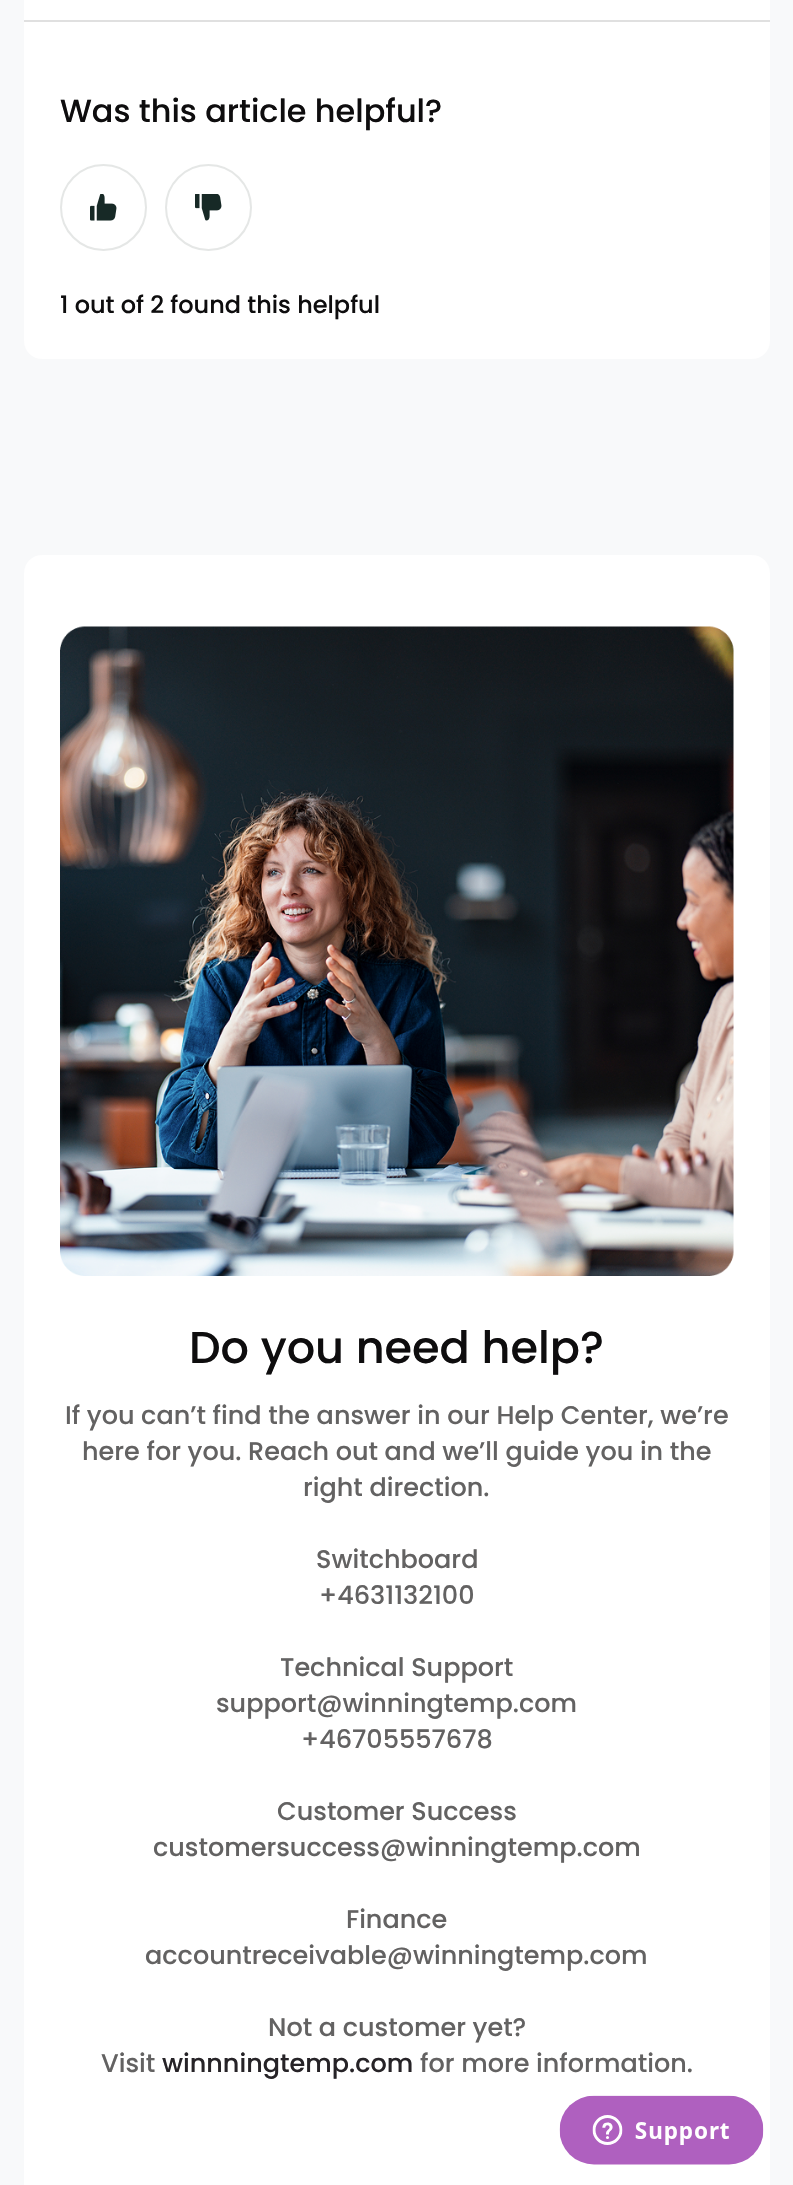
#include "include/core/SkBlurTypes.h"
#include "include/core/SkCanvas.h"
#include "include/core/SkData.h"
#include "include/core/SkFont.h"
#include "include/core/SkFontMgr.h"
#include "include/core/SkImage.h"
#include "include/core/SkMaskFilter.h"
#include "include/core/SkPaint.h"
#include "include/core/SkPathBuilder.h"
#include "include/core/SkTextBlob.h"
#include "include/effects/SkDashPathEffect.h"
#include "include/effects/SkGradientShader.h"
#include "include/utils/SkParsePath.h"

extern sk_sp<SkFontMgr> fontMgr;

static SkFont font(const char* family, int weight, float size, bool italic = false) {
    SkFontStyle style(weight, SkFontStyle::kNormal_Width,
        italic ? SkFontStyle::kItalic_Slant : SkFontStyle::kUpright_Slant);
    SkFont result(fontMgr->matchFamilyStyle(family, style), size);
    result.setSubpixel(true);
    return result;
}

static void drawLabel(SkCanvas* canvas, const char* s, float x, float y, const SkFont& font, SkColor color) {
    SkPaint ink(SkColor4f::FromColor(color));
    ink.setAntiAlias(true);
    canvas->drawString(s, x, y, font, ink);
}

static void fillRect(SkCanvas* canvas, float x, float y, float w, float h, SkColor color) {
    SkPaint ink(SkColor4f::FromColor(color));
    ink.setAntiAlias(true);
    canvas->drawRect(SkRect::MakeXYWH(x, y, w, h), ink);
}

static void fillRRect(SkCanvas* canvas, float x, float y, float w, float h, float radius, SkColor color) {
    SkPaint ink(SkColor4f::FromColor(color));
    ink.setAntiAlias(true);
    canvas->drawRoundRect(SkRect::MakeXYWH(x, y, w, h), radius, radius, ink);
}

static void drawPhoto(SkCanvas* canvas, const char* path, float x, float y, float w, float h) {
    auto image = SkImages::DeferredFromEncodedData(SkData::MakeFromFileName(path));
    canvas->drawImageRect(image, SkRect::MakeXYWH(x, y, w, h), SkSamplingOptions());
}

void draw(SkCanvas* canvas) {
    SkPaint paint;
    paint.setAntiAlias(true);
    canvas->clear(0xFFF8F9FA);
    fillRRect(canvas, 24, -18, 746, 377, 18, 0xFFFFFFFF);
    fillRect(canvas, 24, 20, 746, 2, 0xFFE0E0E0);
    SkFont font1 = font("Poppins", 500, 31.9f);
    drawLabel(canvas, "Was this article helpful?", 60, 122, font1, 0xFF0E0D0E);
    drawPhoto(canvas, "assets/img1.png", 90, 194, 27, 27);
    paint.setStroke(true);
    paint.setStrokeWidth(2);
    paint.setColor(0xFFE5E7E6);
    canvas->drawCircle(103.5f, 207.5f, 42.5f, paint);
    drawPhoto(canvas, "assets/img2.png", 195, 194, 27, 27);
    canvas->drawCircle(208.5f, 207.5f, 42.5f, paint);
    SkFont font2 = font("Poppins", 500, 24);
    drawLabel(canvas, "1 out of 2 found this helpful", 60, 313, font2, 0xFF0E0D0E);
    fillRRect(canvas, 24, 555, 746, 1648, 18, 0xFFFFFFFF);
    drawPhoto(canvas, "assets/img3.png", 60, 626, 674, 650);
    SkFont font3 = font("Poppins", 500, 44.6f);
    drawLabel(canvas, "Do you need help?", 189, 1363, font3, 0xFF0E0D0E);
    SkFont font4 = font("Poppins", 500, 25.5f);
    drawLabel(canvas, "If you can’t find the answer in our Help Center, we’re", 65, 1424, font4, 0xFF636262);
    drawLabel(canvas, "here for you. Reach out and we’ll guide you in the", 82, 1460, font4, 0xFF636262);
    drawLabel(canvas, "right direction.", 303, 1496, font4, 0xFF636262);
    drawLabel(canvas, "Switchboard", 316, 1568, font4, 0xFF636262);
    drawLabel(canvas, "+4631132100", 319, 1604, font4, 0xFF636262);
    drawLabel(canvas, "Technical Support", 280, 1676, font4, 0xFF636262);
    drawLabel(canvas, "support@winningtemp.com", 216, 1712, font4, 0xFF636262);
    drawLabel(canvas, "+46705557678", 301, 1748, font4, 0xFF636262);
    drawLabel(canvas, "Customer Success", 277, 1820, font4, 0xFF636262);
    drawLabel(canvas, "customersuccess@winningtemp.com", 153, 1856, font4, 0xFF636262);
    drawLabel(canvas, "Finance", 346, 1928, font4, 0xFF636262);
    drawLabel(canvas, "accountreceivable@winningtemp.com", 145, 1964, font4, 0xFF636262);
    drawLabel(canvas, "Not a customer yet?", 268, 2036, font4, 0xFF636262);
    drawLabel(canvas, "Visit", 101, 2072, font4, 0xFF636262);
    drawLabel(canvas, "winnningtemp.com", 162, 2072, font4, 0xFF262327);
    drawLabel(canvas, "for more information.", 420, 2072, font4, 0xFF636262);
    drawPhoto(canvas, "assets/img4.png", 559, 2095, 205, 70);
}
